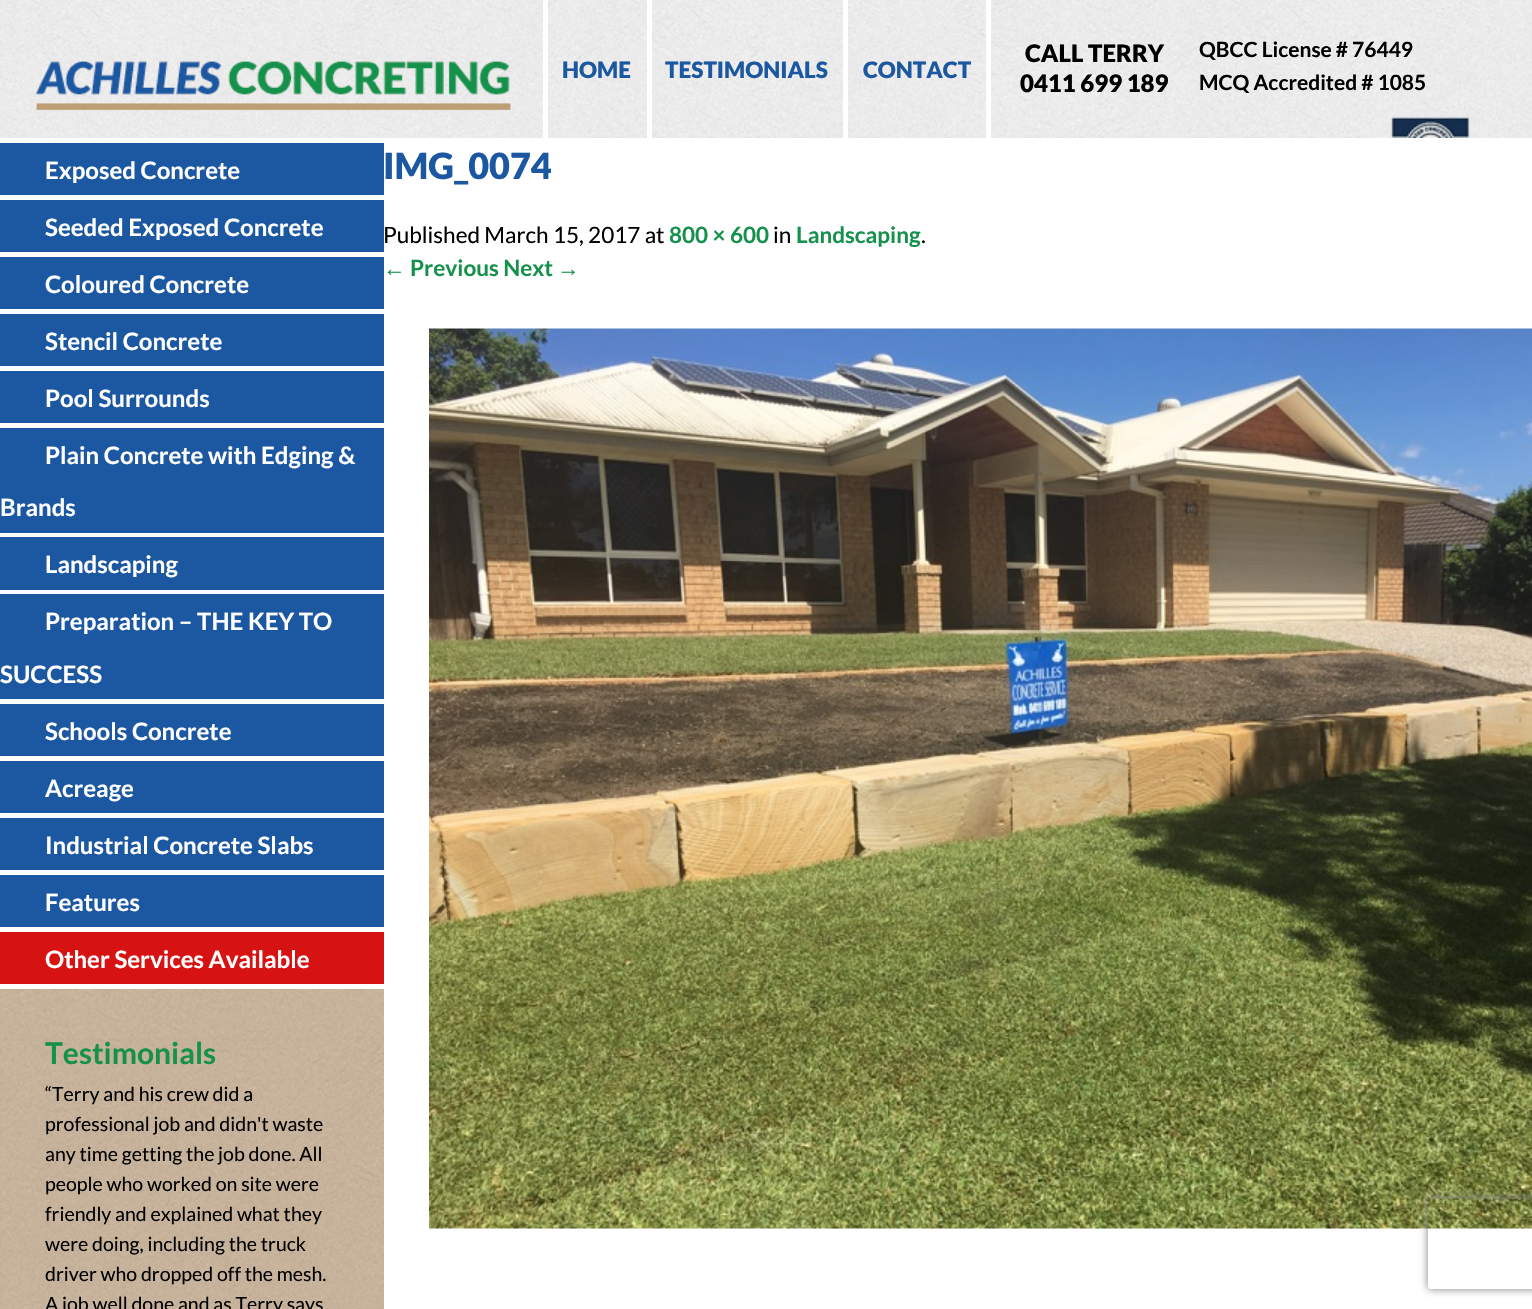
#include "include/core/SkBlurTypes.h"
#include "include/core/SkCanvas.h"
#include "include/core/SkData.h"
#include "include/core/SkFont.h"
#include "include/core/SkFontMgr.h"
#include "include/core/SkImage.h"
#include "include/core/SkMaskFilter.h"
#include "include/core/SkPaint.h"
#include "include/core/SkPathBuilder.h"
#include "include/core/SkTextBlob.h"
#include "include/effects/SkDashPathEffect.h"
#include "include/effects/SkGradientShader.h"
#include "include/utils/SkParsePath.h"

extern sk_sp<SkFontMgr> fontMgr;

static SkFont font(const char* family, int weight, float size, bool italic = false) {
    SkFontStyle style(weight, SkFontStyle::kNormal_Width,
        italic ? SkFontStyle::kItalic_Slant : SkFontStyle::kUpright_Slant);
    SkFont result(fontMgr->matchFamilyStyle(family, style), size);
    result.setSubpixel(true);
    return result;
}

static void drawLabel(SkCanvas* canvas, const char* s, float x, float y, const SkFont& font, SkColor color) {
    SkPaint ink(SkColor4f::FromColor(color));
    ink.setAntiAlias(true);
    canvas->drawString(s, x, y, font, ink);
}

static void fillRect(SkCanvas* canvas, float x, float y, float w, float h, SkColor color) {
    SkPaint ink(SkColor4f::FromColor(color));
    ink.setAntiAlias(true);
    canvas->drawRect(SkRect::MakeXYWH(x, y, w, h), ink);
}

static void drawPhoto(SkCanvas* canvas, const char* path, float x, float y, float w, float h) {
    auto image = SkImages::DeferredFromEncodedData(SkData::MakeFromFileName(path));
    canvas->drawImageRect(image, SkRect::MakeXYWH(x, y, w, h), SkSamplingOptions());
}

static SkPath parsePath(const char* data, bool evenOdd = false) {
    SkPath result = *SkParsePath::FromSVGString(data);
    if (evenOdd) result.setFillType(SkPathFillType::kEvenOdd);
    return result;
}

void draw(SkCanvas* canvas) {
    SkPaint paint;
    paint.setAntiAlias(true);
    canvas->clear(0xFFFFFFFF);
    drawPhoto(canvas, "assets/img1.png", 0, 0, 1532, 138);
    drawPhoto(canvas, "assets/img2.png", 0, 22, 543, 116);
    fillRect(canvas, 647, 0, 5, 138, 0xFFFFFFFF);
    fillRect(canvas, 543, 0, 5, 138, 0xFFFFFFFF);
    SkFont font1 = font("Lato", 900, 22.5f);
    drawLabel(canvas, "HOME", 562, 78, font1, 0xFF1C58A1);
    fillRect(canvas, 843, 0, 5, 138, 0xFFFFFFFF);
    drawLabel(canvas, "TESTIMONIALS", 665, 78, font1, 0xFF1C58A1);
    fillRect(canvas, 986, 0, 5, 138, 0xFFFFFFFF);
    drawLabel(canvas, "CONTACT", 863, 78, font1, 0xFF1C58A1);
    SkFont font2 = font("Lato", 900, 24);
    drawLabel(canvas, "CALL TERRY", 1025, 62, font2, 0xFF000000);
    drawLabel(canvas, "0411 699 189", 1020, 92, font2, 0xFF000000);
    SkFont font3 = font("Lato", 700, 21);
    drawLabel(canvas, "QBCC License # 76449", 1199, 57, font3, 0xFF000000);
    drawLabel(canvas, "MCQ Accredited # 1085", 1199, 90, font3, 0xFF000000);
    drawPhoto(canvas, "assets/img3.png", 1374, 99, 114, 39);
    drawPhoto(canvas, "assets/img4.png", 0, 989, 384, 320);
    fillRect(canvas, 0, 143, 384, 52, 0xFF1C58A1);
    SkFont font4 = font("Lato", 700, 24);
    drawLabel(canvas, "Exposed Concrete", 45, 179, font4, 0xFFFFFFFF);
    fillRect(canvas, 0, 200, 384, 52, 0xFF1C58A1);
    drawLabel(canvas, "Seeded Exposed Concrete", 45, 236, font4, 0xFFFFFFFF);
    fillRect(canvas, 0, 257, 384, 52, 0xFF1C58A1);
    drawLabel(canvas, "Coloured Concrete", 45, 293, font4, 0xFFFFFFFF);
    fillRect(canvas, 0, 314, 384, 52, 0xFF1C58A1);
    drawLabel(canvas, "Stencil Concrete", 45, 350, font4, 0xFFFFFFFF);
    fillRect(canvas, 0, 371, 384, 52, 0xFF1C58A1);
    drawLabel(canvas, "Pool Surrounds", 45, 407, font4, 0xFFFFFFFF);
    fillRect(canvas, 0, 428, 384, 105, 0xFF1C58A1);
    drawLabel(canvas, "Plain Concrete with Edging &", 45, 464, font4, 0xFFFFFFFF);
    drawLabel(canvas, "Brands", 0, 516, font4, 0xFFFFFFFF);
    fillRect(canvas, 0, 537, 384, 53, 0xFF1C58A1);
    drawLabel(canvas, "Landscaping", 45, 573, font4, 0xFFFFFFFF);
    fillRect(canvas, 0, 594, 384, 105, 0xFF1C58A1);
    drawLabel(canvas, "Preparation – THE KEY TO", 45, 630, font4, 0xFFFFFFFF);
    drawLabel(canvas, "SUCCESS", 0, 683, font4, 0xFFFFFFFF);
    fillRect(canvas, 0, 704, 384, 52, 0xFF1C58A1);
    drawLabel(canvas, "Schools Concrete", 45, 740, font4, 0xFFFFFFFF);
    fillRect(canvas, 0, 761, 384, 52, 0xFF1C58A1);
    drawLabel(canvas, "Acreage", 45, 797, font4, 0xFFFFFFFF);
    fillRect(canvas, 0, 818, 384, 52, 0xFF1C58A1);
    drawLabel(canvas, "Industrial Concrete Slabs", 45, 854, font4, 0xFFFFFFFF);
    fillRect(canvas, 0, 875, 384, 52, 0xFF1C58A1);
    drawLabel(canvas, "Features", 45, 911, font4, 0xFFFFFFFF);
    fillRect(canvas, 0, 932, 384, 52, 0xFFD71212);
    drawLabel(canvas, "Other Services Available", 45, 968, font4, 0xFFFFFFFF);
    SkFont font5 = font("Lato", 700, 30);
    drawLabel(canvas, "Testimonials", 45, 1064, font5, 0xFF15914C);
    SkFont font6 = font("Lato", 400, 19.5f);
    drawLabel(canvas, "“Terry and his crew did a", 45, 1101, font6, 0xFF000000);
    drawLabel(canvas, "professional job and didn't waste", 45, 1131, font6, 0xFF000000);
    drawLabel(canvas, "any time getting the job done. All", 45, 1161, font6, 0xFF000000);
    drawLabel(canvas, "people who worked on site were", 45, 1191, font6, 0xFF000000);
    drawLabel(canvas, "friendly and explained what they", 45, 1221, font6, 0xFF000000);
    drawLabel(canvas, "were doing, including the truck", 45, 1251, font6, 0xFF000000);
    drawLabel(canvas, "driver who dropped off the mesh.", 45, 1281, font6, 0xFF000000);
    drawLabel(canvas, "A job well done and as Terry says", 45, 1311, font6, 0xFF000000);
    SkFont font7 = font("Lato", 900, 36);
    drawLabel(canvas, "IMG_0074", 383, 179, font7, 0xFF1C58A1);
    SkFont font8 = font("Lato", 400, 22.5f);
    drawLabel(canvas, "Published March 15, 2017 at", 383, 243, font8, 0xFF000000);
    SkFont font9 = font("Lato", 700, 22.5f);
    drawLabel(canvas, "800 × 600", 669, 243, font9, 0xFF15914C);
    drawLabel(canvas, "in", 773, 243, font8, 0xFF000000);
    drawLabel(canvas, "Landscaping", 796, 243, font9, 0xFF15914C);
    drawLabel(canvas, ".", 921, 243, font8, 0xFF000000);
    SkFont font10 = font("Liberation Serif", 700, 22.5f);
    drawLabel(canvas, "←", 383, 276, font10, 0xFF15914C);
    drawLabel(canvas, "Previous Next", 410, 276, font9, 0xFF15914C);
    drawLabel(canvas, "→", 557, 276, font10, 0xFF15914C);
    drawPhoto(canvas, "assets/img5.png", 429, 328, 1103, 901);
    canvas->save();
    canvas->clipPath(parsePath("M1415 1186H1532V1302H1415ZM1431 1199H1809C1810.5 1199 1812 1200.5 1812 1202V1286C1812 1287.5 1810.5 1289 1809 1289H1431C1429.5 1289 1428 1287.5 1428 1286V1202C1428 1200.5 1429.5 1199 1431 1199Z", true), true);
    paint.setColor(0xFF808080);
    paint.setMaskFilter(SkMaskFilter::MakeBlur(kNormal_SkBlurStyle, 4));
    canvas->drawRoundRect(SkRect::MakeXYWH(1428, 1199, 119, 90), 3, 3, paint);
    paint.setMaskFilter(nullptr);
    canvas->restore();
}
